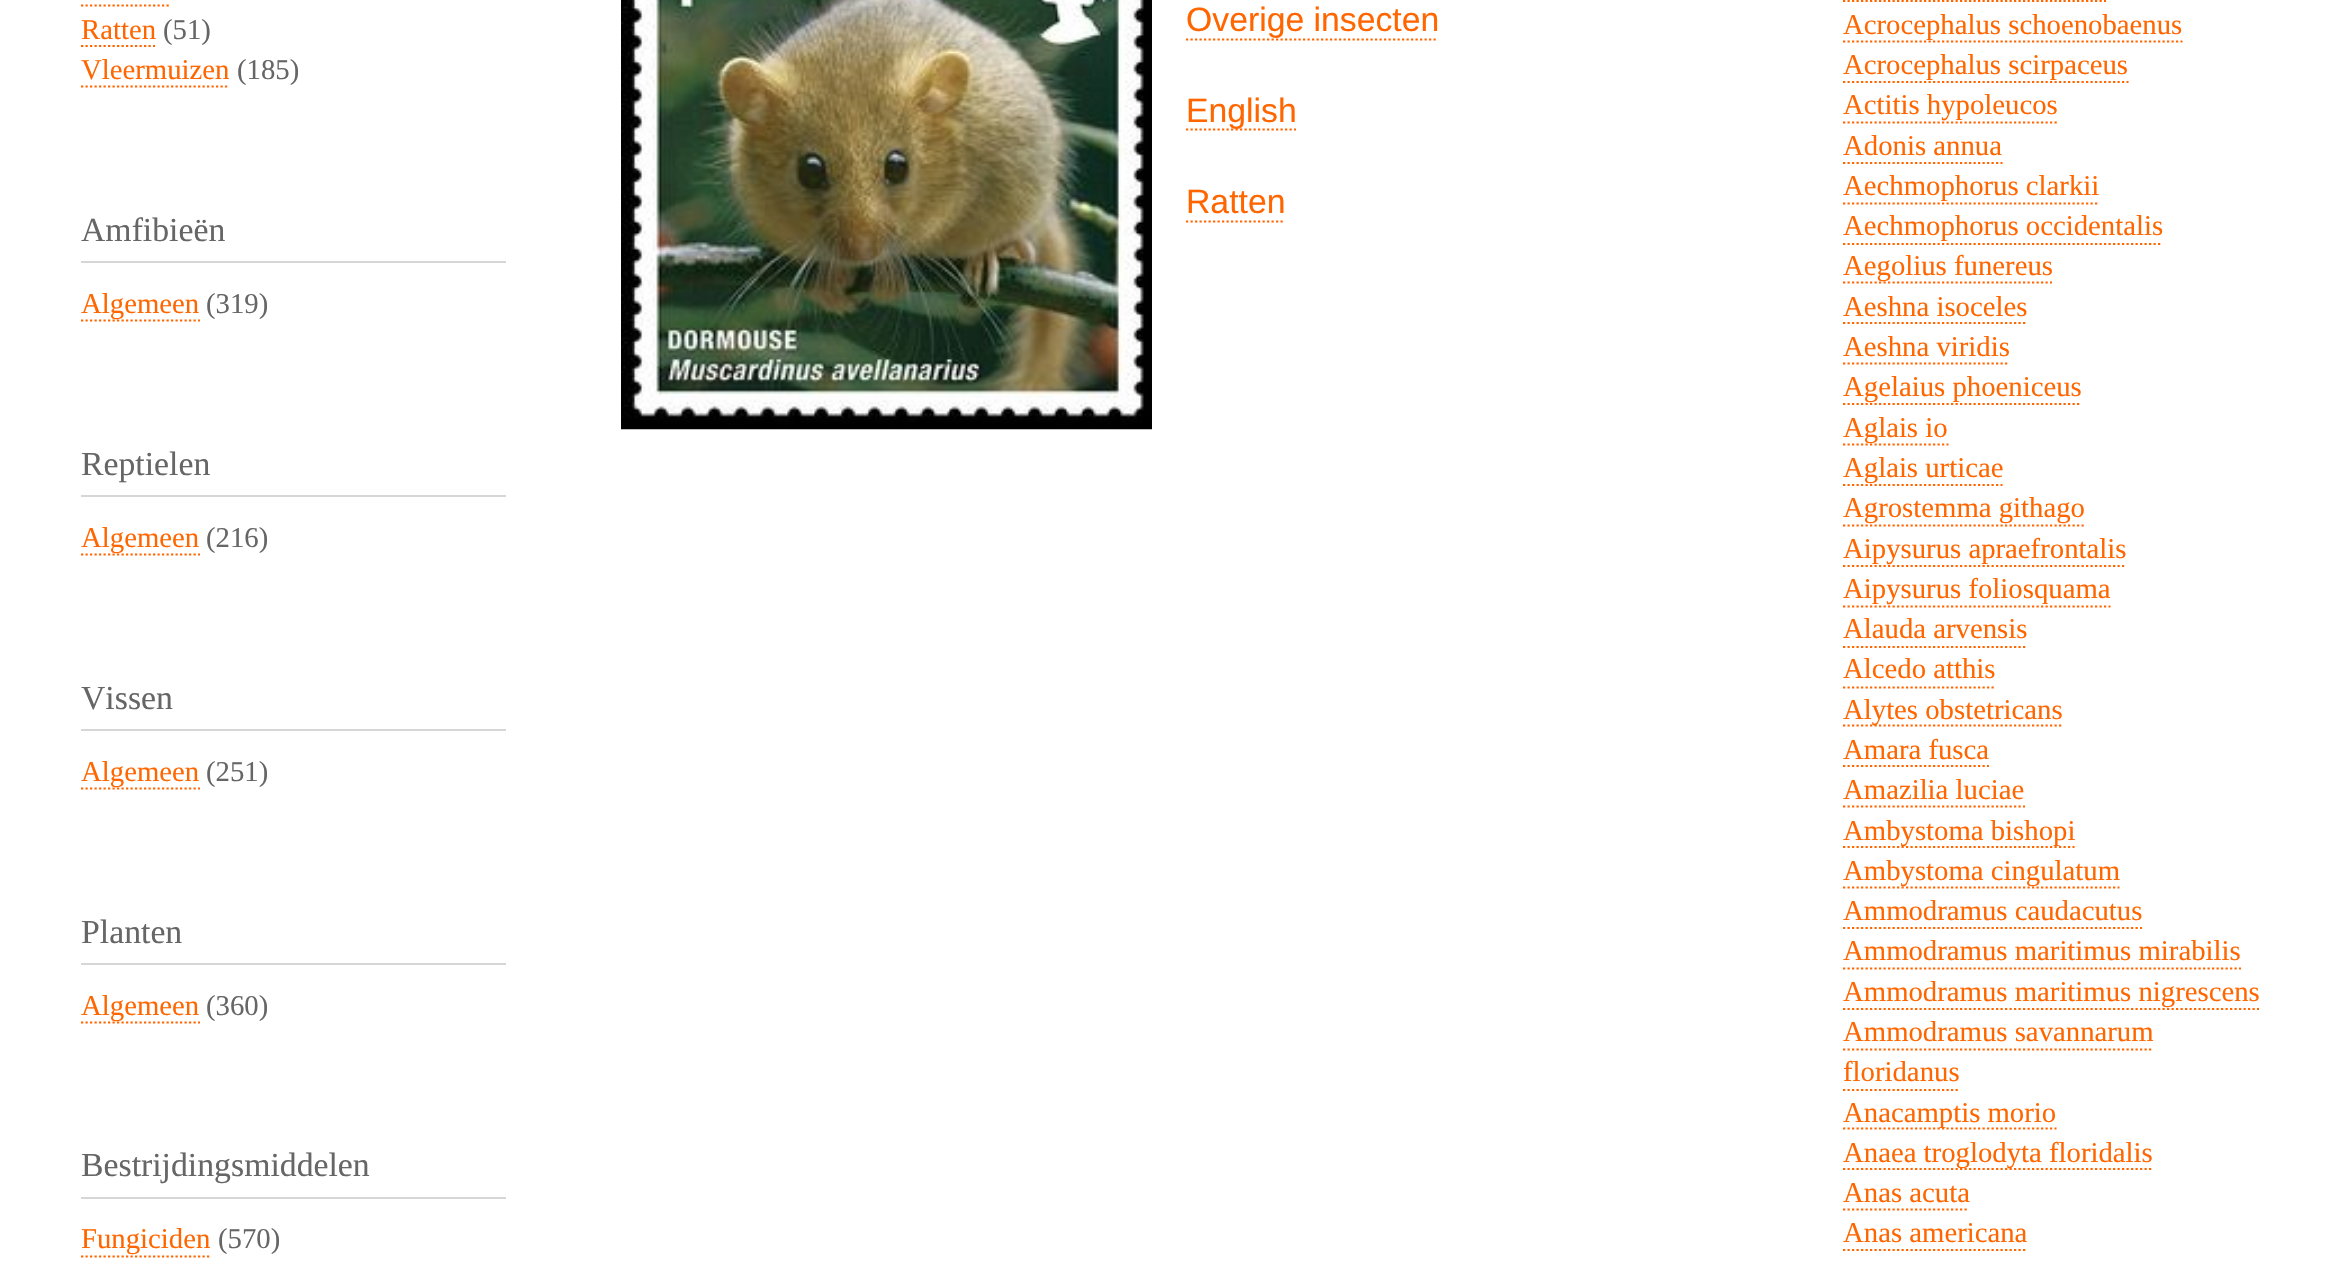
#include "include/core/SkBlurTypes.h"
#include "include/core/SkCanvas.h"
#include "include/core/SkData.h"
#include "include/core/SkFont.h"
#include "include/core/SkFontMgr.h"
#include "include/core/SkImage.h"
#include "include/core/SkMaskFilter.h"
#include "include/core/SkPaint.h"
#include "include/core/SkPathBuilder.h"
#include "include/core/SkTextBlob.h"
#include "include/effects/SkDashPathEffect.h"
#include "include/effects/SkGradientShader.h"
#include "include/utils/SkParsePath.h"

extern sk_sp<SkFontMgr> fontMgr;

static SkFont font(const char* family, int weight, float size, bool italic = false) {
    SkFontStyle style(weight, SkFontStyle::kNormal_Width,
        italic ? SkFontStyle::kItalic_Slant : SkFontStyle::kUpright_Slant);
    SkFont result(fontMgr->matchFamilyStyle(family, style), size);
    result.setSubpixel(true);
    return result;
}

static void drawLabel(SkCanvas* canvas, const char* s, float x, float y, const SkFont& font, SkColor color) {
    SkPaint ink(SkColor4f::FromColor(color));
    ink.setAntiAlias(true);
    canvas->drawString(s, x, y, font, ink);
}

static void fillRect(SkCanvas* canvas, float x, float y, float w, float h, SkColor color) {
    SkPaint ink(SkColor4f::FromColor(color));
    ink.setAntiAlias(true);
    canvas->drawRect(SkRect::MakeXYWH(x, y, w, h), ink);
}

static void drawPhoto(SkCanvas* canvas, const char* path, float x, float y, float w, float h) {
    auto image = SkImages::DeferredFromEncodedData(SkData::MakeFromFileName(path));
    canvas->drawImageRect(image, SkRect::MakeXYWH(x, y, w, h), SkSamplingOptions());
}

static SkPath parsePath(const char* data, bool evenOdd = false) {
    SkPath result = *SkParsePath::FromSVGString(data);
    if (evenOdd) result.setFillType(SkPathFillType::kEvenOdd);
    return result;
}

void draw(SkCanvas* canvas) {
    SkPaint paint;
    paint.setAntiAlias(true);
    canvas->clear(0xFFFFFFFF);
    paint.setStroke(true);
    paint.setStrokeWidth(2.2f);
    paint.setColor(0xFFFF6600);
    paint.setPathEffect(SkDashPathEffect::Make({{2.25f, 2.25f}}, 0));
    canvas->drawPath(parsePath("M81 5.5H169"), paint);
    paint.setPathEffect(nullptr);
    SkFont font1 = font("Liberation Serif", 400, 28.75f);
    drawLabel(canvas, "Ratten", 81, 39, font1, 0xFFFF6600);
    paint.setPathEffect(SkDashPathEffect::Make({{2.25f, 2.25f}}, 0));
    canvas->drawPath(parsePath("M81 46H155"), paint);
    paint.setPathEffect(nullptr);
    drawLabel(canvas, "(51)", 163, 39, font1, 0xFF666666);
    drawLabel(canvas, "Vleermuizen", 81, 79, font1, 0xFFFF6600);
    paint.setPathEffect(SkDashPathEffect::Make({{2.25f, 2.25f}}, 0));
    canvas->drawPath(parsePath("M81 86.5H229.5"), paint);
    paint.setPathEffect(nullptr);
    drawLabel(canvas, "(185)", 237, 79, font1, 0xFF666666);
    fillRect(canvas, 81, 261, 425, 2, 0xFFD6D6D6);
    SkFont font2 = font("Liberation Serif", 400, 33.75f);
    drawLabel(canvas, "Amfibieën", 81, 241, font2, 0xFF666666);
    paint.setPathEffect(SkDashPathEffect::Make({{2.25f, 2.25f}}, 0));
    canvas->drawPath(parsePath("M81 320.5H200"), paint);
    paint.setPathEffect(nullptr);
    drawLabel(canvas, "Algemeen", 81, 313, font1, 0xFFFF6600);
    drawLabel(canvas, "(319)", 206, 313, font1, 0xFF666666);
    fillRect(canvas, 81, 495, 425, 2, 0xFFD6D6D6);
    drawLabel(canvas, "Reptielen", 81, 475, font2, 0xFF666666);
    paint.setPathEffect(SkDashPathEffect::Make({{2.25f, 2.25f}}, 0));
    canvas->drawPath(parsePath("M81 554.5H200"), paint);
    paint.setPathEffect(nullptr);
    drawLabel(canvas, "Algemeen", 81, 547, font1, 0xFFFF6600);
    drawLabel(canvas, "(216)", 206, 547, font1, 0xFF666666);
    fillRect(canvas, 81, 729, 425, 2, 0xFFD6D6D6);
    drawLabel(canvas, "Vissen", 81, 709, font2, 0xFF666666);
    paint.setPathEffect(SkDashPathEffect::Make({{2.25f, 2.25f}}, 0));
    canvas->drawPath(parsePath("M81 788.5H200"), paint);
    paint.setPathEffect(nullptr);
    drawLabel(canvas, "Algemeen", 81, 781, font1, 0xFFFF6600);
    drawLabel(canvas, "(251)", 206, 781, font1, 0xFF666666);
    fillRect(canvas, 81, 963, 425, 2, 0xFFD6D6D6);
    drawLabel(canvas, "Planten", 81, 943, font2, 0xFF666666);
    paint.setPathEffect(SkDashPathEffect::Make({{2.25f, 2.25f}}, 0));
    canvas->drawPath(parsePath("M81 1022.5H200"), paint);
    paint.setPathEffect(nullptr);
    drawLabel(canvas, "Algemeen", 81, 1015, font1, 0xFFFF6600);
    drawLabel(canvas, "(360)", 206, 1015, font1, 0xFF666666);
    fillRect(canvas, 81, 1197, 425, 2, 0xFFD6D6D6);
    drawLabel(canvas, "Bestrijdingsmiddelen", 81, 1176, font2, 0xFF666666);
    drawLabel(canvas, "Fungiciden", 81, 1248, font1, 0xFFFF6600);
    paint.setPathEffect(SkDashPathEffect::Make({{2.25f, 2.25f}}, 0));
    canvas->drawPath(parsePath("M81 1256.5H211.5"), paint);
    paint.setPathEffect(nullptr);
    drawLabel(canvas, "(570)", 218, 1248, font1, 0xFF666666);
    drawPhoto(canvas, "assets/img1.png", 621, 0, 531, 430);
    SkFont font3 = font("Liberation Sans", 400, 33.75f);
    drawLabel(canvas, "Overige insecten", 1186, 31, font3, 0xFFFF6600);
    paint.setPathEffect(SkDashPathEffect::Make({{2.25f, 2.25f}}, 0));
    canvas->drawPath(parsePath("M1186 39.5H1438"), paint);
    paint.setPathEffect(nullptr);
    paint.setPathEffect(SkDashPathEffect::Make({{2.25f, 2.25f}}, 0));
    canvas->drawPath(parsePath("M1186 129.5H1296"), paint);
    paint.setPathEffect(nullptr);
    drawLabel(canvas, "English", 1186, 122, font3, 0xFFFF6600);
    drawLabel(canvas, "Ratten", 1186, 213, font3, 0xFFFF6600);
    paint.setPathEffect(SkDashPathEffect::Make({{2.25f, 2.25f}}, 0));
    canvas->drawPath(parsePath("M1186 221.5H1285"), paint);
    paint.setPathEffect(nullptr);
    paint.setPathEffect(SkDashPathEffect::Make({{2.25f, 2.25f}}, 0));
    canvas->drawPath(parsePath("M1843 1H2106"), paint);
    paint.setPathEffect(nullptr);
    paint.setPathEffect(SkDashPathEffect::Make({{2.25f, 2.25f}}, 0));
    canvas->drawPath(parsePath("M1843 41.5H2182.5"), paint);
    paint.setPathEffect(nullptr);
    drawLabel(canvas, "Acrocephalus schoenobaenus", 1843, 34, font1, 0xFFFF6600);
    paint.setPathEffect(SkDashPathEffect::Make({{2.25f, 2.25f}}, 0));
    canvas->drawPath(parsePath("M1843 82H2128.5"), paint);
    paint.setPathEffect(nullptr);
    drawLabel(canvas, "Acrocephalus scirpaceus", 1843, 74, font1, 0xFFFF6600);
    drawLabel(canvas, "Actitis hypoleucos", 1843, 114, font1, 0xFFFF6600);
    paint.setPathEffect(SkDashPathEffect::Make({{2.25f, 2.25f}}, 0));
    canvas->drawPath(parsePath("M1843 122.5H2059"), paint);
    paint.setPathEffect(nullptr);
    drawLabel(canvas, "Adonis annua", 1843, 155, font1, 0xFFFF6600);
    paint.setPathEffect(SkDashPathEffect::Make({{2.25f, 2.25f}}, 0));
    canvas->drawPath(parsePath("M1843 163H2002.5"), paint);
    paint.setPathEffect(nullptr);
    drawLabel(canvas, "Aechmophorus clarkii", 1843, 195, font1, 0xFFFF6600);
    paint.setPathEffect(SkDashPathEffect::Make({{2.25f, 2.25f}}, 0));
    canvas->drawPath(parsePath("M1843 203.5H2099"), paint);
    paint.setPathEffect(nullptr);
    drawLabel(canvas, "Aechmophorus occidentalis", 1843, 235, font1, 0xFFFF6600);
    paint.setPathEffect(SkDashPathEffect::Make({{2.25f, 2.25f}}, 0));
    canvas->drawPath(parsePath("M1843 244H2162"), paint);
    paint.setPathEffect(nullptr);
    paint.setPathEffect(SkDashPathEffect::Make({{2.25f, 2.25f}}, 0));
    canvas->drawPath(parsePath("M1843 282.5H2052"), paint);
    paint.setPathEffect(nullptr);
    drawLabel(canvas, "Aegolius funereus", 1843, 275, font1, 0xFFFF6600);
    drawLabel(canvas, "Aeshna isoceles", 1843, 316, font1, 0xFFFF6600);
    paint.setPathEffect(SkDashPathEffect::Make({{2.25f, 2.25f}}, 0));
    canvas->drawPath(parsePath("M1843 323H2027"), paint);
    paint.setPathEffect(nullptr);
    drawLabel(canvas, "Aeshna viridis", 1843, 356, font1, 0xFFFF6600);
    paint.setPathEffect(SkDashPathEffect::Make({{2.25f, 2.25f}}, 0));
    canvas->drawPath(parsePath("M1843 363.5H2009"), paint);
    paint.setPathEffect(nullptr);
    paint.setPathEffect(SkDashPathEffect::Make({{2.25f, 2.25f}}, 0));
    canvas->drawPath(parsePath("M1843 404H2081"), paint);
    paint.setPathEffect(nullptr);
    drawLabel(canvas, "Agelaius phoeniceus", 1843, 396, font1, 0xFFFF6600);
    paint.setPathEffect(SkDashPathEffect::Make({{2.25f, 2.25f}}, 0));
    canvas->drawPath(parsePath("M1843 444.5H1948.5"), paint);
    paint.setPathEffect(nullptr);
    drawLabel(canvas, "Aglais io", 1843, 437, font1, 0xFFFF6600);
    paint.setPathEffect(SkDashPathEffect::Make({{2.25f, 2.25f}}, 0));
    canvas->drawPath(parsePath("M1843 485H2002.5"), paint);
    paint.setPathEffect(nullptr);
    drawLabel(canvas, "Aglais urticae", 1843, 477, font1, 0xFFFF6600);
    drawLabel(canvas, "Agrostemma githago", 1843, 517, font1, 0xFFFF6600);
    paint.setPathEffect(SkDashPathEffect::Make({{2.25f, 2.25f}}, 0));
    canvas->drawPath(parsePath("M1843 525.5H2086"), paint);
    paint.setPathEffect(nullptr);
    paint.setPathEffect(SkDashPathEffect::Make({{2.25f, 2.25f}}, 0));
    canvas->drawPath(parsePath("M1843 566H2126"), paint);
    paint.setPathEffect(nullptr);
    drawLabel(canvas, "Aipysurus apraefrontalis", 1843, 558, font1, 0xFFFF6600);
    drawLabel(canvas, "Aipysurus foliosquama", 1843, 598, font1, 0xFFFF6600);
    paint.setPathEffect(SkDashPathEffect::Make({{2.25f, 2.25f}}, 0));
    canvas->drawPath(parsePath("M1843 606.5H2110.5"), paint);
    paint.setPathEffect(nullptr);
    drawLabel(canvas, "Alauda arvensis", 1843, 638, font1, 0xFFFF6600);
    paint.setPathEffect(SkDashPathEffect::Make({{2.25f, 2.25f}}, 0));
    canvas->drawPath(parsePath("M1843 647H2027"), paint);
    paint.setPathEffect(nullptr);
    drawLabel(canvas, "Alcedo atthis", 1843, 678, font1, 0xFFFF6600);
    paint.setPathEffect(SkDashPathEffect::Make({{2.25f, 2.25f}}, 0));
    canvas->drawPath(parsePath("M1843 687.5H1996"), paint);
    paint.setPathEffect(nullptr);
    paint.setPathEffect(SkDashPathEffect::Make({{2.25f, 2.25f}}, 0));
    canvas->drawPath(parsePath("M1843 725.5H2063"), paint);
    paint.setPathEffect(nullptr);
    drawLabel(canvas, "Alytes obstetricans", 1843, 719, font1, 0xFFFF6600);
    drawLabel(canvas, "Amara fusca", 1843, 759, font1, 0xFFFF6600);
    paint.setPathEffect(SkDashPathEffect::Make({{2.25f, 2.25f}}, 0));
    canvas->drawPath(parsePath("M1843 766H1989"), paint);
    paint.setPathEffect(nullptr);
    drawLabel(canvas, "Amazilia luciae", 1843, 799, font1, 0xFFFF6600);
    paint.setPathEffect(SkDashPathEffect::Make({{2.25f, 2.25f}}, 0));
    canvas->drawPath(parsePath("M1843 806.5H2025"), paint);
    paint.setPathEffect(nullptr);
    paint.setPathEffect(SkDashPathEffect::Make({{2.25f, 2.25f}}, 0));
    canvas->drawPath(parsePath("M1843 847H2074.5"), paint);
    paint.setPathEffect(nullptr);
    drawLabel(canvas, "Ambystoma bishopi", 1843, 840, font1, 0xFFFF6600);
    paint.setPathEffect(SkDashPathEffect::Make({{2.25f, 2.25f}}, 0));
    canvas->drawPath(parsePath("M1843 887.5H2119.5"), paint);
    paint.setPathEffect(nullptr);
    drawLabel(canvas, "Ambystoma cingulatum", 1843, 880, font1, 0xFFFF6600);
    drawLabel(canvas, "Ammodramus caudacutus", 1843, 920, font1, 0xFFFF6600);
    paint.setPathEffect(SkDashPathEffect::Make({{2.25f, 2.25f}}, 0));
    canvas->drawPath(parsePath("M1843 928H2142"), paint);
    paint.setPathEffect(nullptr);
    drawLabel(canvas, "Ammodramus maritimus mirabilis", 1843, 960, font1, 0xFFFF6600);
    paint.setPathEffect(SkDashPathEffect::Make({{2.25f, 2.25f}}, 0));
    canvas->drawPath(parsePath("M1843 968.5H2241"), paint);
    paint.setPathEffect(nullptr);
    paint.setPathEffect(SkDashPathEffect::Make({{2.25f, 2.25f}}, 0));
    canvas->drawPath(parsePath("M1843 1009H2259"), paint);
    paint.setPathEffect(nullptr);
    drawLabel(canvas, "Ammodramus maritimus nigrescens", 1843, 1001, font1, 0xFFFF6600);
    drawLabel(canvas, "Ammodramus savannarum", 1843, 1041, font1, 0xFFFF6600);
    paint.setPathEffect(SkDashPathEffect::Make({{2.25f, 2.25f}}, 0));
    canvas->drawPath(parsePath("M1843 1049.5H2153"), paint);
    paint.setPathEffect(nullptr);
    drawLabel(canvas, "floridanus", 1843, 1081, font1, 0xFFFF6600);
    paint.setPathEffect(SkDashPathEffect::Make({{2.25f, 2.25f}}, 0));
    canvas->drawPath(parsePath("M1843 1090H1960"), paint);
    paint.setPathEffect(nullptr);
    paint.setPathEffect(SkDashPathEffect::Make({{2.25f, 2.25f}}, 0));
    canvas->drawPath(parsePath("M1843 1128.5H2056.5"), paint);
    paint.setPathEffect(nullptr);
    drawLabel(canvas, "Anacamptis morio", 1843, 1122, font1, 0xFFFF6600);
    paint.setPathEffect(SkDashPathEffect::Make({{2.25f, 2.25f}}, 0));
    canvas->drawPath(parsePath("M1843 1169H2153"), paint);
    paint.setPathEffect(nullptr);
    drawLabel(canvas, "Anaea troglodyta floridalis", 1843, 1162, font1, 0xFFFF6600);
    drawLabel(canvas, "Anas acuta", 1843, 1202, font1, 0xFFFF6600);
    paint.setPathEffect(SkDashPathEffect::Make({{2.25f, 2.25f}}, 0));
    canvas->drawPath(parsePath("M1843 1209.5H1969"), paint);
    paint.setPathEffect(nullptr);
    drawLabel(canvas, "Anas americana", 1843, 1242, font1, 0xFFFF6600);
    paint.setPathEffect(SkDashPathEffect::Make({{2.25f, 2.25f}}, 0));
    canvas->drawPath(parsePath("M1843 1250H2027"), paint);
    paint.setPathEffect(nullptr);
}
